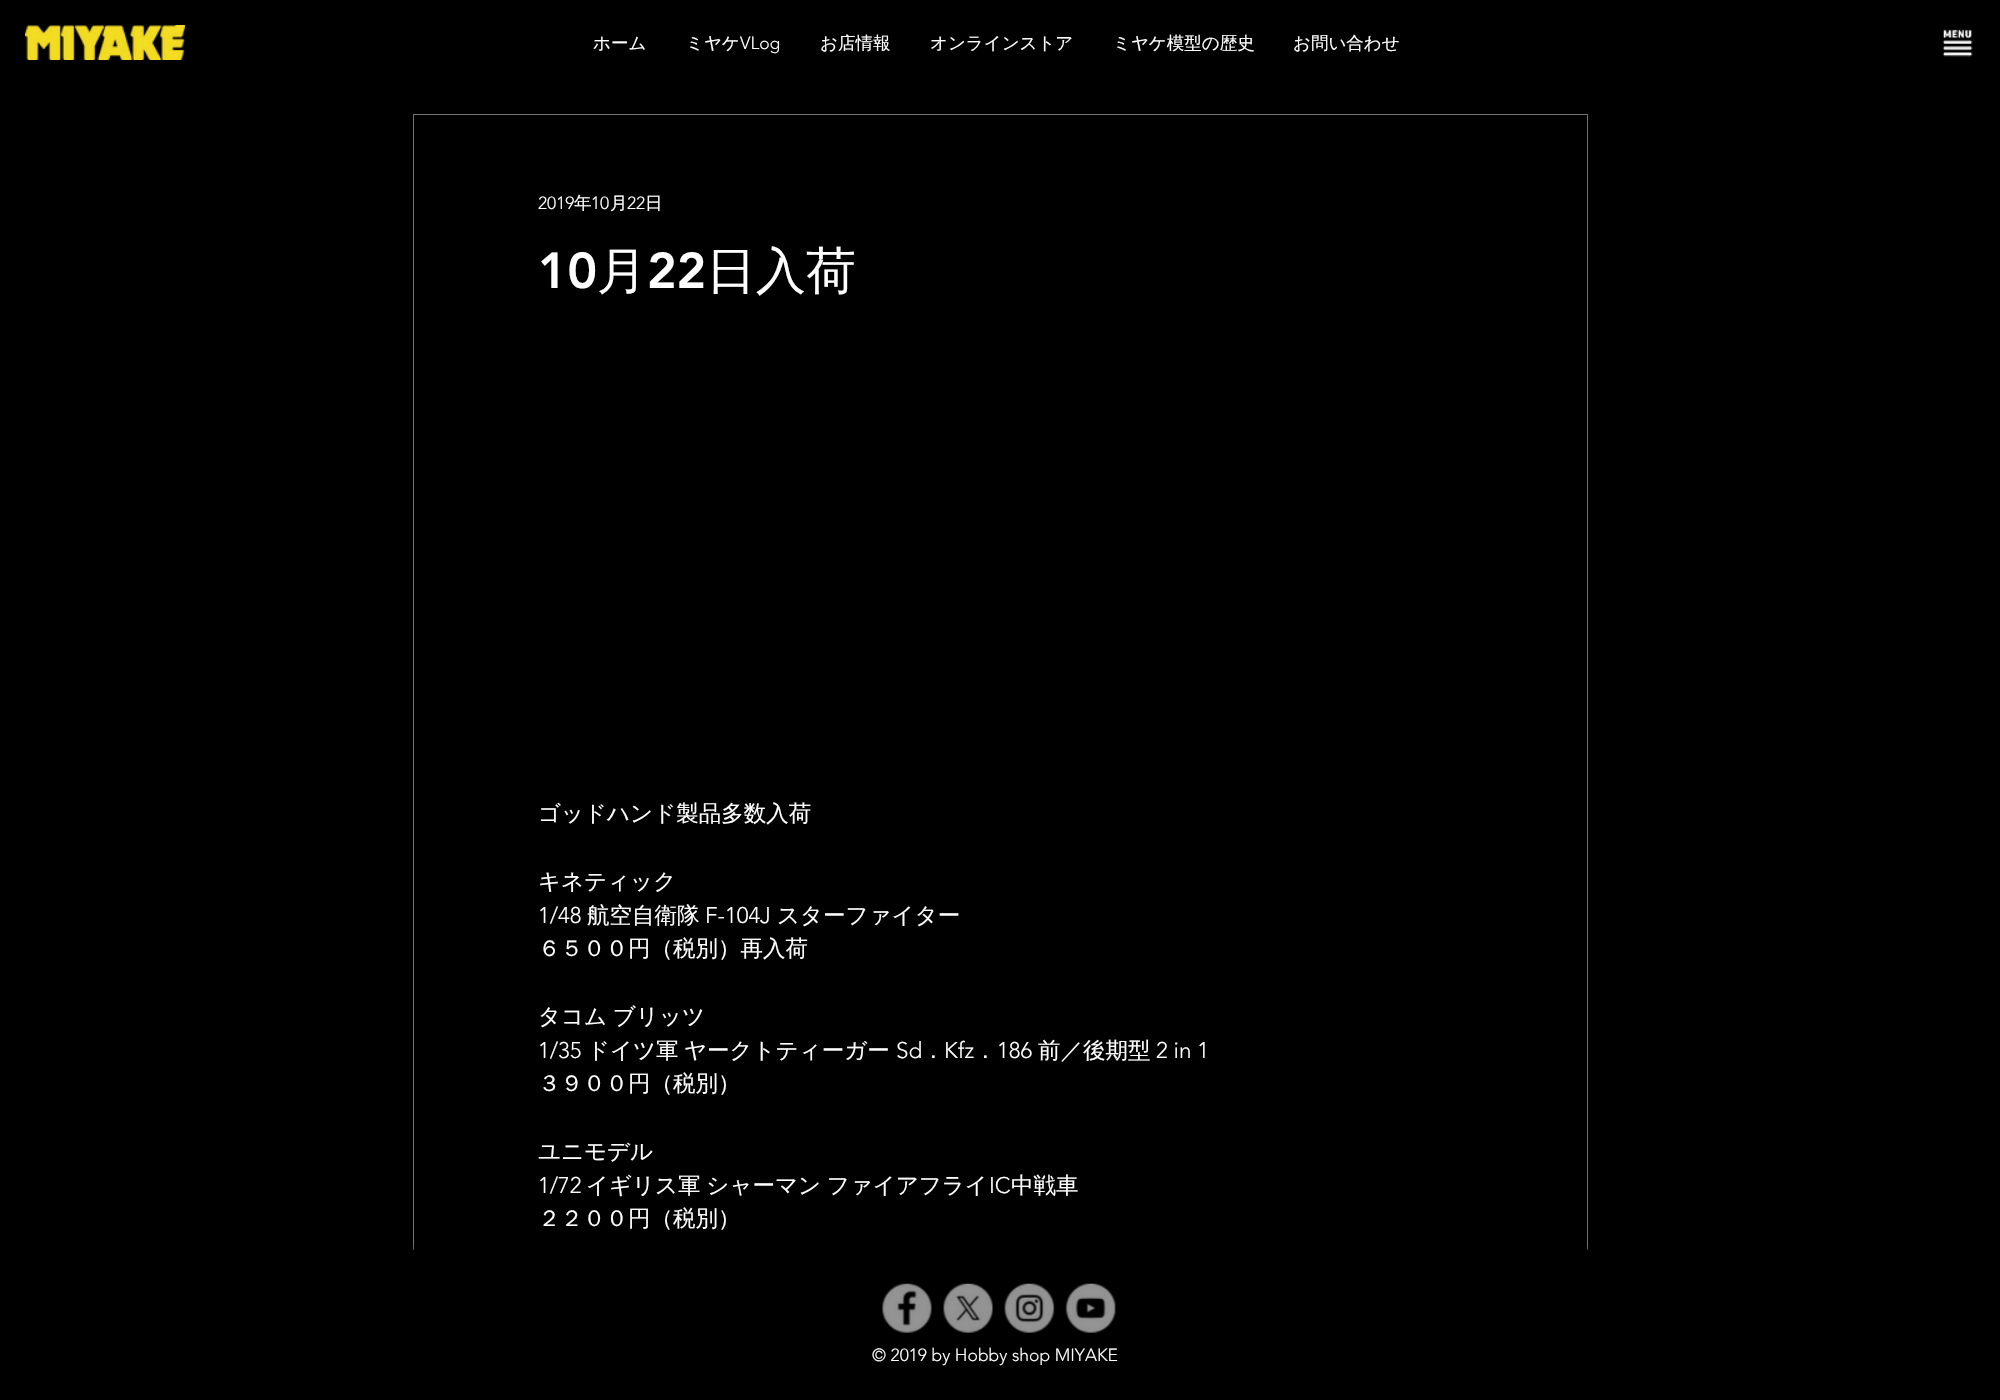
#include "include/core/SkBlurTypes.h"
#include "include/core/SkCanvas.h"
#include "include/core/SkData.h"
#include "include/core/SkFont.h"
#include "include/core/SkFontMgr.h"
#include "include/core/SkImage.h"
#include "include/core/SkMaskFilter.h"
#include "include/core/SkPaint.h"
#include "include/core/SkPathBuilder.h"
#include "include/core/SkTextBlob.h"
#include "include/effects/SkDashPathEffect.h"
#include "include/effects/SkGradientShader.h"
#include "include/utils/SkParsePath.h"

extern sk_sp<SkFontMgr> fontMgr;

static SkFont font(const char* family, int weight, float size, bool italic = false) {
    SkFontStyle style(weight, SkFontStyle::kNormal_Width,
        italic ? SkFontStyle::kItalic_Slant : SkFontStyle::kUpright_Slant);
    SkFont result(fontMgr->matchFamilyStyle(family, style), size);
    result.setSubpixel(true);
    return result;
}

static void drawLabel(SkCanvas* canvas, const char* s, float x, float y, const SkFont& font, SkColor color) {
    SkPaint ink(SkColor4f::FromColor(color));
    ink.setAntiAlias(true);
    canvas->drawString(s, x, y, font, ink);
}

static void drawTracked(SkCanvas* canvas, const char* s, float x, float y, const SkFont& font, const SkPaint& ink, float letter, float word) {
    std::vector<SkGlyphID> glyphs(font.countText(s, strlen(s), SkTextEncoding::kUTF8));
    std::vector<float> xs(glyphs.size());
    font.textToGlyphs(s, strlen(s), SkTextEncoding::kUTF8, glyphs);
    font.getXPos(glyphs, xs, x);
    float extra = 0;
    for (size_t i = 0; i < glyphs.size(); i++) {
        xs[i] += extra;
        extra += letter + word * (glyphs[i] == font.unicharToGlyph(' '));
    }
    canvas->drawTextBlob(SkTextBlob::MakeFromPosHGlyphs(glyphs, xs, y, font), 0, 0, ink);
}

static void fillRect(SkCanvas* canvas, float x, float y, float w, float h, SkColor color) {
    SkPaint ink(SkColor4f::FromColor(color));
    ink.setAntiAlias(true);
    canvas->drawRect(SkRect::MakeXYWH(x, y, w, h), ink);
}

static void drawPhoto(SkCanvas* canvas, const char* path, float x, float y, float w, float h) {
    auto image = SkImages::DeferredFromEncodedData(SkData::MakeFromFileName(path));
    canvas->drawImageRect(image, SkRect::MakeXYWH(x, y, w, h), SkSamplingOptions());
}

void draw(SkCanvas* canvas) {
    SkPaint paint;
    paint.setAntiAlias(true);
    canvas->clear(0xFF000000);
    drawPhoto(canvas, "assets/img1.png", 25, 25, 160, 35);
    SkFont font1 = font("WenQuanYi Zen Hei", 500, 17.5f);
    drawLabel(canvas, "ホーム", 593, 49, font1, 0xFFFFFFFF);
    drawLabel(canvas, "ミヤケ", 686, 49, font1, 0xFFFFFFFF);
    SkFont font2 = font("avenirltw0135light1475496", 300, 17.5f);
    drawLabel(canvas, "VLog", 740, 49, font2, 0xFFFFFFFF);
    drawLabel(canvas, "お店情報", 820, 49, font1, 0xFFFFFFFF);
    drawLabel(canvas, "オンラインストア", 930, 49, font1, 0xFFFFFFFF);
    drawLabel(canvas, "ミヤケ模型の歴史", 1113, 49, font1, 0xFFFFFFFF);
    drawLabel(canvas, "お問い合わせ", 1293, 49, font1, 0xFFFFFFFF);
    drawPhoto(canvas, "assets/img2.png", 1942, 29, 31, 28);
    paint.setStroke(true);
    paint.setStrokeWidth(1);
    paint.setColor(0xFF737371);
    canvas->drawRect(SkRect::MakeXYWH(413.5f, 114.5f, 1174, 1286), paint);
    drawLabel(canvas, "2019", 538, 209, font2, 0xFFFFFFFF);
    drawLabel(canvas, "年", 574, 209, font1, 0xFFFFFFFF);
    drawLabel(canvas, "10", 591, 209, font2, 0xFFFFFFFF);
    drawLabel(canvas, "月", 610, 209, font1, 0xFFFFFFFF);
    drawLabel(canvas, "22", 627, 209, font2, 0xFFFFFFFF);
    drawLabel(canvas, "日", 645, 209, font1, 0xFFFFFFFF);
    SkFont font3 = font("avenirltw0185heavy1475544", 900, 50);
    drawLabel(canvas, "10", 538, 288, font3, 0xFFFFFFFF);
    SkFont font4 = font("WenQuanYi Zen Hei", 500, 50);
    drawLabel(canvas, "月", 597, 288, font4, 0xFFFFFFFF);
    drawLabel(canvas, "22", 647, 288, font3, 0xFFFFFFFF);
    drawLabel(canvas, "日入荷", 706, 288, font4, 0xFFFFFFFF);
    SkFont font5 = font("WenQuanYi Zen Hei", 500, 22.5f);
    drawLabel(canvas, "ゴッドハンド製品多数入荷", 538, 821, font5, 0xFFFFFFFF);
    drawLabel(canvas, "キネティック", 538, 889, font5, 0xFFFFFFFF);
    SkFont font6 = font("avenirltw0135light1475496", 300, 22.5f);
    drawLabel(canvas, "1/48", 538, 923, font6, 0xFFFFFFFF);
    drawLabel(canvas, "航空自衛隊", 587, 923, font5, 0xFFFFFFFF);
    drawLabel(canvas, "F-104J", 705, 923, font6, 0xFFFFFFFF);
    drawLabel(canvas, "スターファイター", 777, 923, font5, 0xFFFFFFFF);
    drawLabel(canvas, "６５００円（税別）再入荷", 538, 956, font5, 0xFFFFFFFF);
    paint.setStroke(false);
    paint.setColor(0xFFFFFFFF);
    drawTracked(canvas, "タコム ブリッツ", 538, 1024, font5, paint, 0, -1);
    drawLabel(canvas, "1/35", 538, 1058, font6, 0xFFFFFFFF);
    drawLabel(canvas, "ドイツ軍", 587, 1058, font5, 0xFFFFFFFF);
    drawLabel(canvas, "ヤークトティーガー", 684, 1058, font5, 0xFFFFFFFF);
    drawLabel(canvas, "Sd", 896, 1058, font6, 0xFFFFFFFF);
    drawLabel(canvas, "．", 922, 1058, font5, 0xFFFFFFFF);
    drawLabel(canvas, "Kfz", 944, 1058, font6, 0xFFFFFFFF);
    drawLabel(canvas, "．", 974, 1058, font5, 0xFFFFFFFF);
    drawLabel(canvas, "186", 997, 1058, font6, 0xFFFFFFFF);
    drawLabel(canvas, "前／後期型", 1038, 1058, font5, 0xFFFFFFFF);
    drawLabel(canvas, "2 in 1", 1156, 1058, font6, 0xFFFFFFFF);
    drawLabel(canvas, "３９００円（税別）", 538, 1091, font5, 0xFFFFFFFF);
    drawLabel(canvas, "ユニモデル", 538, 1159, font5, 0xFFFFFFFF);
    drawLabel(canvas, "1/72", 538, 1193, font6, 0xFFFFFFFF);
    drawTracked(canvas, "イギリス軍 シャーマン ファイアフライ", 586, 1193, font5, paint, 0, -1);
    drawLabel(canvas, "IC", 989, 1193, font6, 0xFFFFFFFF);
    drawLabel(canvas, "中戦車", 1011, 1193, font5, 0xFFFFFFFF);
    drawLabel(canvas, "２２００円（税別）", 538, 1226, font5, 0xFFFFFFFF);
    paint.setColor(0xB3000000);
    paint.setMaskFilter(SkMaskFilter::MakeBlur(kNormal_SkBlurStyle, 3));
    canvas->drawRect(SkRect::MakeXYWH(0, 1250, 2000, 150), paint);
    paint.setMaskFilter(nullptr);
    fillRect(canvas, 413, 1250, 1175, 150, 0xFF000000);
    drawPhoto(canvas, "assets/img3.png", 882, 1283, 50, 50);
    drawPhoto(canvas, "assets/img4.png", 943, 1283, 50, 50);
    drawPhoto(canvas, "assets/img5.png", 1004, 1283, 51, 50);
    drawPhoto(canvas, "assets/img6.png", 1065, 1283, 51, 50);
    drawLabel(canvas, "© 2019 by Hobby shop MIYAKE", 872, 1361, font2, 0xFFFFFFFF);
}
